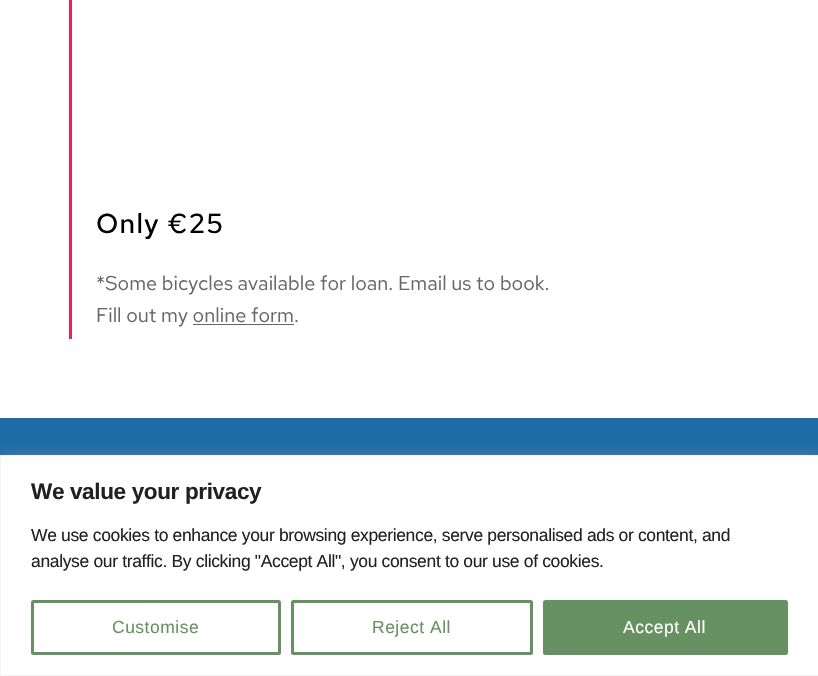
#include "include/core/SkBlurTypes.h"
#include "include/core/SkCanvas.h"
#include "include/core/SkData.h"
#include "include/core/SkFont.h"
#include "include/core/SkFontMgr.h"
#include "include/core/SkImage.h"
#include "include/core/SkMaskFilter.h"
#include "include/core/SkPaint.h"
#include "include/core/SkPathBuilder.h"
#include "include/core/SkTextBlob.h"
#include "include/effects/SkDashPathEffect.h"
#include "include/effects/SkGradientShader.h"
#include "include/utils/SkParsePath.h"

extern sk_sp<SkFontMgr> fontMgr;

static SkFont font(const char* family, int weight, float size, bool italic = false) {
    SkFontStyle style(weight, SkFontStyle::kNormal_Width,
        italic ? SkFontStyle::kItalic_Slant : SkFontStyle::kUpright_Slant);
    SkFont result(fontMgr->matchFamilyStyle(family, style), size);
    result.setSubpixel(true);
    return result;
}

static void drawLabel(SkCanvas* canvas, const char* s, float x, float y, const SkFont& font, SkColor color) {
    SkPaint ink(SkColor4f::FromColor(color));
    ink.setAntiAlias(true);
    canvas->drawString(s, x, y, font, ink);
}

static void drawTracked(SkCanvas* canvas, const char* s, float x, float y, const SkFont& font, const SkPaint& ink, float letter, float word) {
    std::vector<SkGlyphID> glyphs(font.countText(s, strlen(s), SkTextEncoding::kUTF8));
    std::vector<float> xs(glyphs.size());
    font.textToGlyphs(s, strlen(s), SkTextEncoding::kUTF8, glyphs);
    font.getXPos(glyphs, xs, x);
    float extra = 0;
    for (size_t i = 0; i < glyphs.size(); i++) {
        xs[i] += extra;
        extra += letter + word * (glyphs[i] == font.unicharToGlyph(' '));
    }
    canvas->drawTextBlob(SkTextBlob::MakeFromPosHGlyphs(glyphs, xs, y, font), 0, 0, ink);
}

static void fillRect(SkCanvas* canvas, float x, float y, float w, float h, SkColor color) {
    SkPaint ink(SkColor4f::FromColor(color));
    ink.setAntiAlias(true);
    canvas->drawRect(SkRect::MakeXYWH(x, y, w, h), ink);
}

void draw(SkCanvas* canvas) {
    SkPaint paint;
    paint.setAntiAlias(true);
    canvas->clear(0xFFFFFFFF);
    fillRect(canvas, 69, 0, 3, 339, 0xFFE22658);
    SkFont font1 = font("Red Hat Text", 500, 27.5f);
    paint.setColor(0xFF000000);
    drawTracked(canvas, "Only €25", 96, 233, font1, paint, 1.25f, 0);
    SkFont font2 = font("Red Hat Text", 400, 20);
    drawLabel(canvas, "*Some bicycles available for loan. Email us to book.", 96, 290, font2, 0xFF666666);
    drawLabel(canvas, "Fill out my online form.", 96, 322, font2, 0xFF666666);
    fillRect(canvas, 193, 324, 101, 1, 0xFF666666);
    fillRect(canvas, 0, 418, 818, 37, 0xFF1F6BA7);
    paint.setColor(0x4DACABAB);
    paint.setMaskFilter(SkMaskFilter::MakeBlur(kNormal_SkBlurStyle, 6));
    canvas->drawRect(SkRect::MakeXYWH(0, 454, 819, 221), paint);
    paint.setMaskFilter(nullptr);
    paint.setColor(0xFFFFFFFF);
    canvas->drawRect(SkRect::MakeXYWH(0.5f, 455.5f, 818, 220), paint);
    paint.setStroke(true);
    paint.setStrokeWidth(1);
    paint.setColor(0xFFF4F4F4);
    canvas->drawRect(SkRect::MakeXYWH(0.5f, 455.5f, 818, 220), paint);
    SkFont font3 = font("Liberation Sans", 700, 22.5f);
    paint.setStroke(false);
    paint.setColor(0xFF212121);
    drawTracked(canvas, "We value your privacy", 31, 499, font3, paint, -0.35f, 0);
    SkFont font4 = font("Liberation Sans", 400, 17.5f);
    drawTracked(canvas, "We use cookies to enhance your browsing experience, serve personalised ads or content, and", 31, 541, font4, paint, -0.35f, 0);
    drawTracked(canvas, "analyse our traffic. By clicking \"Accept All\", you consent to our use of cookies.", 31, 567, font4, paint, -0.35f, 0);
    paint.setStroke(true);
    paint.setStrokeWidth(3);
    paint.setColor(0xFF689163);
    canvas->drawRoundRect(SkRect::MakeXYWH(32.5f, 601.5f, 247, 52), 1, 1, paint);
    paint.setStroke(false);
    drawTracked(canvas, "Customise", 112, 633, font4, paint, 0.5f, 0);
    paint.setStroke(true);
    canvas->drawRoundRect(SkRect::MakeXYWH(292.5f, 601.5f, 239, 52), 1, 1, paint);
    paint.setStroke(false);
    drawTracked(canvas, "Reject All", 372, 633, font4, paint, 0.5f, 0);
    canvas->drawRoundRect(SkRect::MakeXYWH(544.5f, 601.5f, 242, 52), 1, 1, paint);
    paint.setStroke(true);
    canvas->drawRoundRect(SkRect::MakeXYWH(544.5f, 601.5f, 242, 52), 1, 1, paint);
    paint.setStroke(false);
    paint.setColor(0xFFFFFFFF);
    drawTracked(canvas, "Accept All", 623, 633, font4, paint, 0.5f, 0);
}
